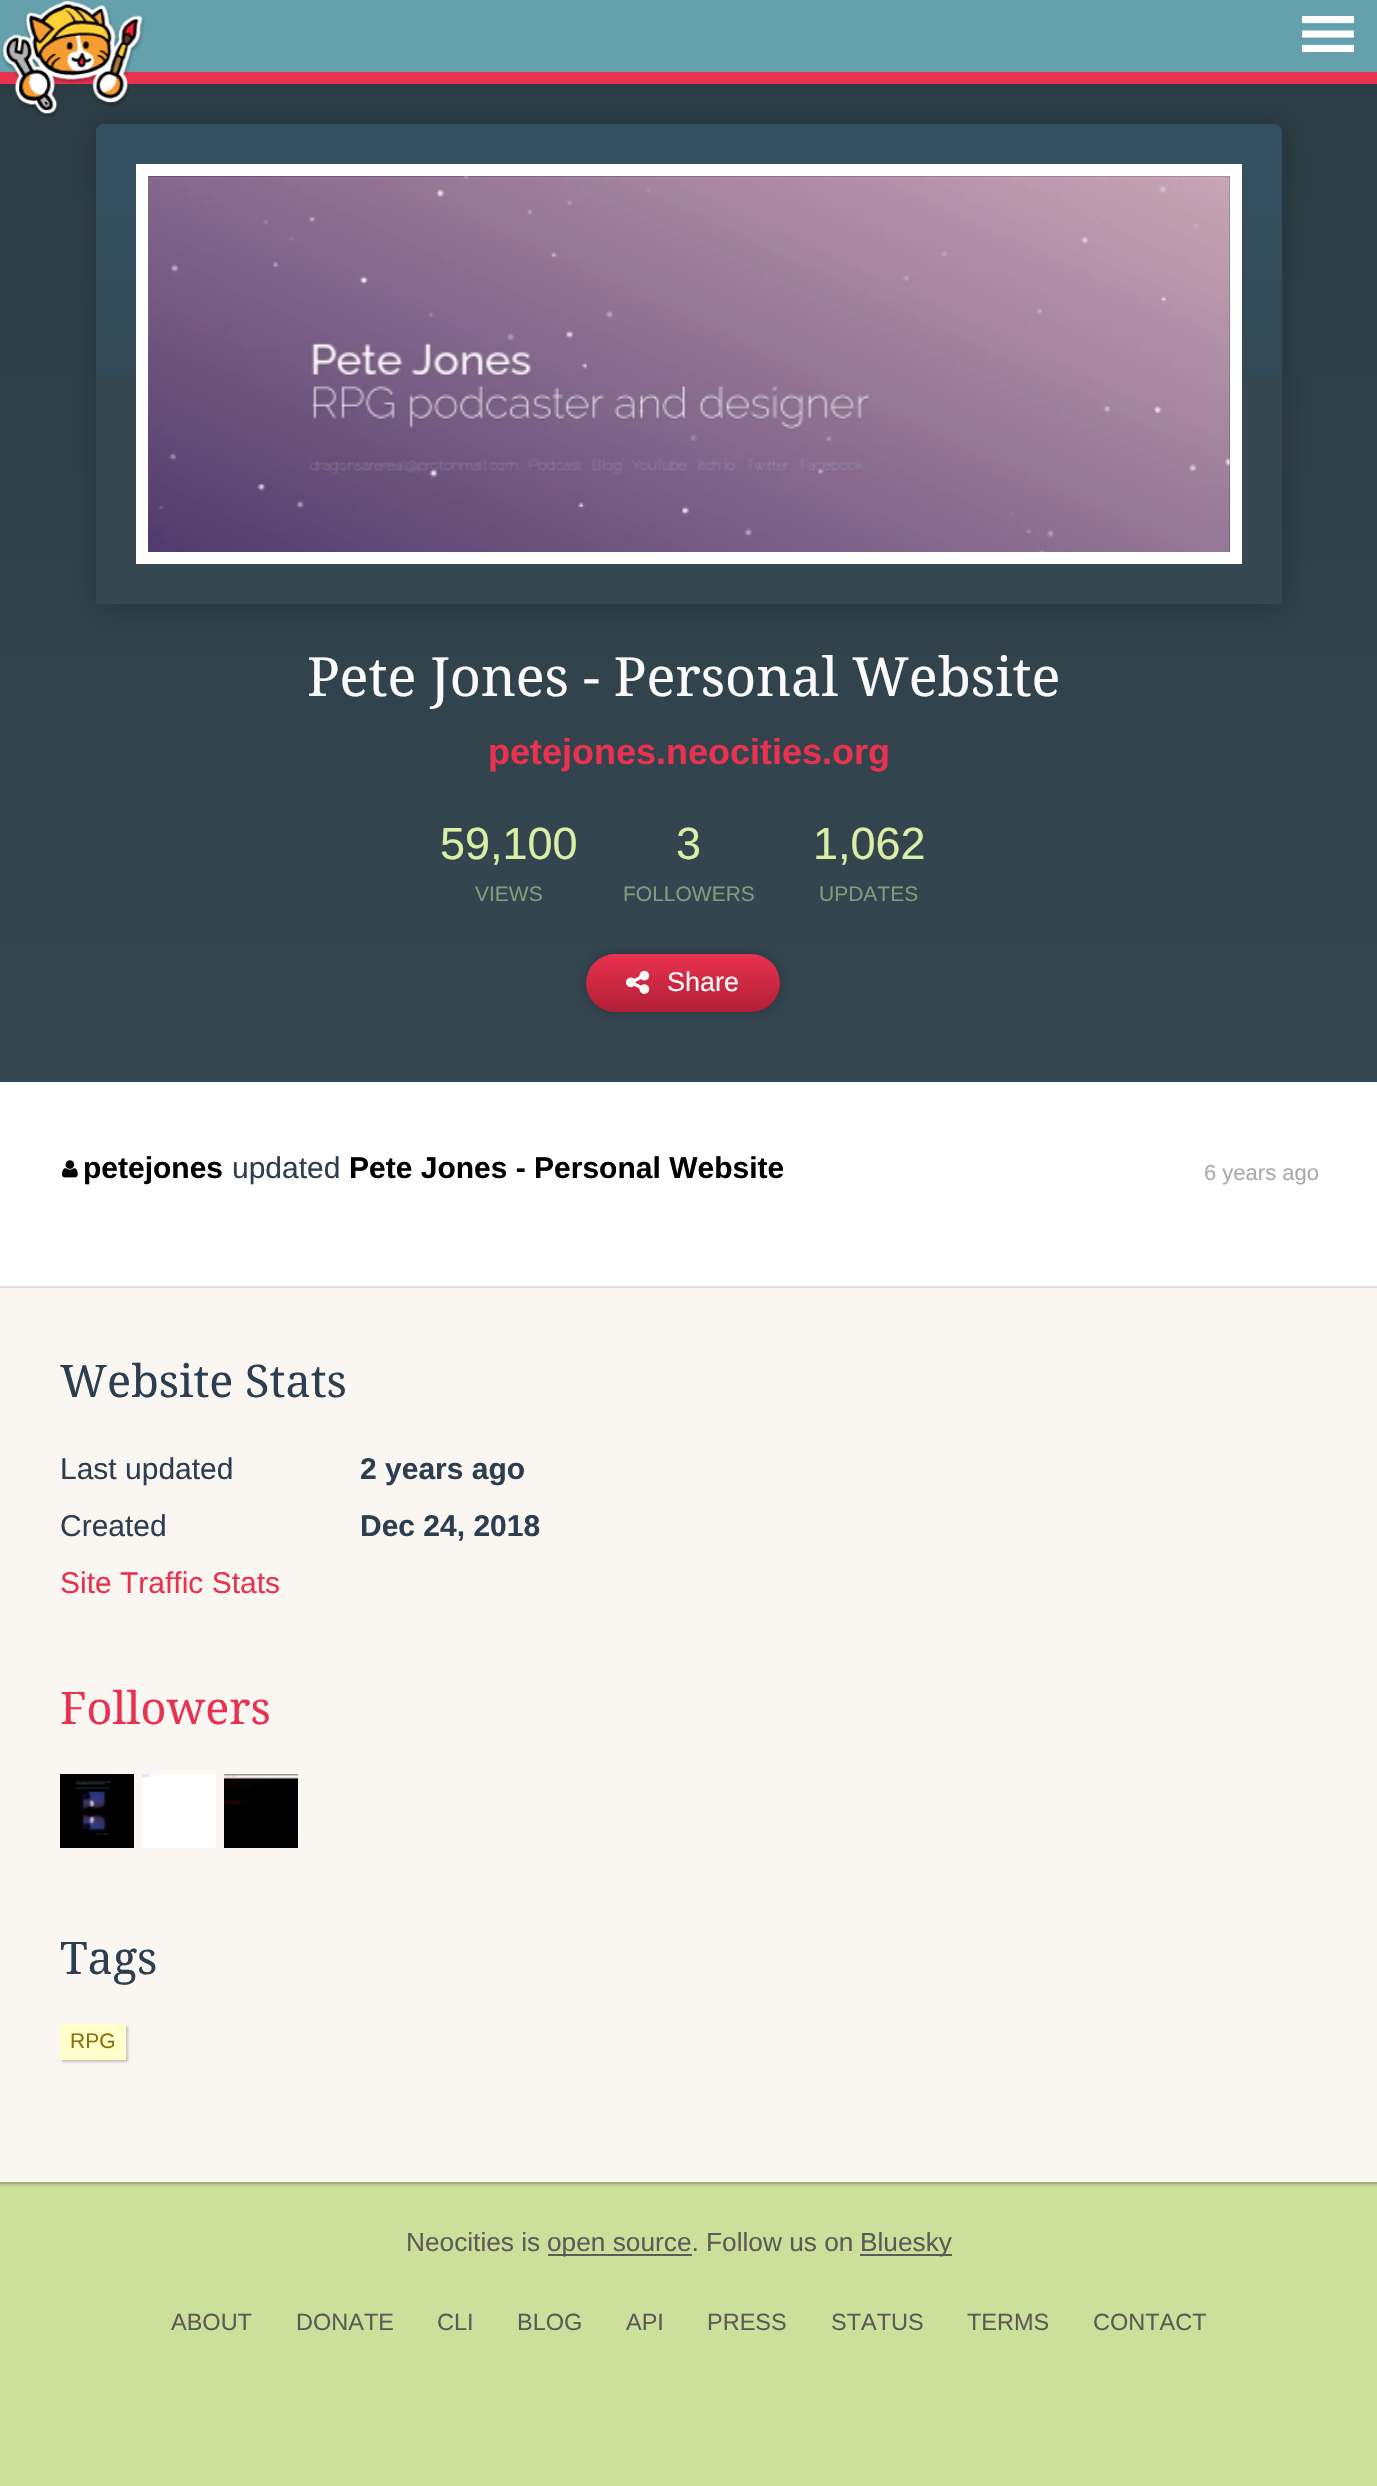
#include "include/core/SkBlurTypes.h"
#include "include/core/SkCanvas.h"
#include "include/core/SkData.h"
#include "include/core/SkFont.h"
#include "include/core/SkFontMgr.h"
#include "include/core/SkImage.h"
#include "include/core/SkMaskFilter.h"
#include "include/core/SkPaint.h"
#include "include/core/SkPathBuilder.h"
#include "include/core/SkTextBlob.h"
#include "include/effects/SkDashPathEffect.h"
#include "include/effects/SkGradientShader.h"
#include "include/utils/SkParsePath.h"

extern sk_sp<SkFontMgr> fontMgr;

static SkFont font(const char* family, int weight, float size, bool italic = false) {
    SkFontStyle style(weight, SkFontStyle::kNormal_Width,
        italic ? SkFontStyle::kItalic_Slant : SkFontStyle::kUpright_Slant);
    SkFont result(fontMgr->matchFamilyStyle(family, style), size);
    result.setSubpixel(true);
    return result;
}

static void drawLabel(SkCanvas* canvas, const char* s, float x, float y, const SkFont& font, SkColor color) {
    SkPaint ink(SkColor4f::FromColor(color));
    ink.setAntiAlias(true);
    canvas->drawString(s, x, y, font, ink);
}

static void fillRect(SkCanvas* canvas, float x, float y, float w, float h, SkColor color) {
    SkPaint ink(SkColor4f::FromColor(color));
    ink.setAntiAlias(true);
    canvas->drawRect(SkRect::MakeXYWH(x, y, w, h), ink);
}

static void drawPhoto(SkCanvas* canvas, const char* path, float x, float y, float w, float h) {
    auto image = SkImages::DeferredFromEncodedData(SkData::MakeFromFileName(path));
    canvas->drawImageRect(image, SkRect::MakeXYWH(x, y, w, h), SkSamplingOptions());
}

static SkPath parsePath(const char* data, bool evenOdd = false) {
    SkPath result = *SkParsePath::FromSVGString(data);
    if (evenOdd) result.setFillType(SkPathFillType::kEvenOdd);
    return result;
}

void draw(SkCanvas* canvas) {
    SkPaint paint;
    paint.setAntiAlias(true);
    canvas->clear(0xFFCCDF9B);
    fillRect(canvas, 0, 0, 1377, 72, 0xFF65A0AD);
    fillRect(canvas, 0, 72, 1377, 12, 0xFFE93250);
    {
        const SkColor colors[] = {0xFF2B3C43, 0xFF354751};
        const float stops[] = {0, 1};
        const SkPoint ends[] = {{689, 44}, {689, 1082}};
        paint.setShader(SkGradientShader::MakeLinear(ends, colors, stops, 2, SkTileMode::kClamp));
        paint.setAlpha(255);
    }
    canvas->drawRect(SkRect::MakeXYWH(0, 84, 1377, 998), paint);
    paint.setShader(nullptr);
    paint.setColor(0x26000000);
    paint.setMaskFilter(SkMaskFilter::MakeBlur(kNormal_SkBlurStyle, 12));
    canvas->drawRoundRect(SkRect::MakeXYWH(94, 124, 1194, 488), 12, 12, paint);
    paint.setMaskFilter(nullptr);
    drawPhoto(canvas, "assets/img1.png", 1, 1, 144, 116);
    drawPhoto(canvas, "assets/img2.png", 1302, 16, 52, 36);
    paint.setColor(0xFF354751);
    canvas->drawPath(parsePath("M104 124H1274C1278.5 124 1282 127.5 1282 132V604H96V132C96 127.5 99.5 124 104 124Z"), paint);
    drawPhoto(canvas, "assets/img3.png", 96, 124, 1186, 252);
    drawPhoto(canvas, "assets/img4.png", 148, 176, 1082, 376);
    paint.setStroke(true);
    paint.setStrokeWidth(12);
    paint.setColor(0xFFFFFFFF);
    canvas->drawRect(SkRect::MakeXYWH(142, 170, 1094, 388), paint);
    SkFont font1 = font("Droid Serif", 400, 54);
    drawLabel(canvas, "Pete Jones - Personal Website", 307, 696, font1, 0xFFFAFAFA);
    SkFont font2 = font("Liberation Sans", 700, 36);
    drawLabel(canvas, "petejones.neocities.org", 488, 764, font2, 0xFFE93250);
    SkFont font3 = font("Liberation Sans", 400, 45);
    drawLabel(canvas, "59,100", 440, 859, font3, 0xFFDAEEA5);
    SkFont font4 = font("Liberation Sans", 400, 21);
    drawLabel(canvas, "VIEWS", 475, 901, font4, 0xFF84997E);
    drawLabel(canvas, "3", 676, 859, font3, 0xFFDAEEA5);
    drawLabel(canvas, "FOLLOWERS", 623, 901, font4, 0xFF84997E);
    drawLabel(canvas, "1,062", 813, 859, font3, 0xFFDAEEA5);
    drawLabel(canvas, "UPDATES", 819, 901, font4, 0xFF84997E);
    paint.setStroke(false);
    paint.setColor(0x40000000);
    paint.setMaskFilter(SkMaskFilter::MakeBlur(kNormal_SkBlurStyle, 6));
    canvas->drawRoundRect(SkRect::MakeXYWH(586, 954, 194, 58), 29, 29, paint);
    paint.setMaskFilter(nullptr);
    {
        const SkColor colors[] = {0xFFE93250, 0xFFB11F36};
        const float stops[] = {0, 1};
        const SkPoint ends[] = {{683, 954}, {683, 1012}};
        paint.setShader(SkGradientShader::MakeLinear(ends, colors, stops, 2, SkTileMode::kClamp));
        paint.setAlpha(255);
    }
    canvas->drawRoundRect(SkRect::MakeXYWH(586, 954, 194, 58), 29, 29, paint);
    drawPhoto(canvas, "assets/img5.png", 626, 970, 24, 24);
    SkFont font5 = font("Liberation Sans", 400, 27);
    drawLabel(canvas, "Share", 667, 991, font5, 0xFFFAFAFA);
    fillRect(canvas, 0, 2182, 1377, 2, 0xFFB3C388);
    paint.setShader(nullptr);
    paint.setColor(0x1A000000);
    paint.setMaskFilter(SkMaskFilter::MakeBlur(kNormal_SkBlurStyle, 1));
    canvas->drawRect(SkRect::MakeXYWH(-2, 1082, 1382, 1104), paint);
    paint.setMaskFilter(nullptr);
    fillRect(canvas, 0, 1288, 1377, 894, 0xFFFAF6F1);
    fillRect(canvas, 0, 1082, 1377, 204, 0xFFFFFFFF);
    fillRect(canvas, 0, 1286, 1377, 2, 0xFFDDDDDD);
    drawPhoto(canvas, "assets/img6.png", 62, 1160, 16, 18);
    SkFont font6 = font("Liberation Sans", 700, 30);
    drawLabel(canvas, "petejones", 83, 1178, font6, 0xFF000000);
    SkFont font7 = font("Liberation Sans", 400, 30);
    drawLabel(canvas, "updated", 232, 1178, font7, 0xFF2C3E50);
    drawLabel(canvas, "Pete Jones - Personal Website", 349, 1178, font6, 0xFF000000);
    SkFont font8 = font("Liberation Sans", 400, 22);
    drawLabel(canvas, "6 years ago", 1204, 1180, font8, 0xFFAAAAAA);
    SkFont font9 = font("Droid Serif", 400, 45);
    drawLabel(canvas, "Website Stats", 60, 1397, font9, 0xFF2C3E50);
    drawLabel(canvas, "Last updated", 60, 1479, font7, 0xFF2C3E50);
    drawLabel(canvas, "2 years ago", 360, 1479, font6, 0xFF2C3E50);
    drawLabel(canvas, "Created", 60, 1536, font7, 0xFF2C3E50);
    drawLabel(canvas, "Dec 24, 2018", 360, 1536, font6, 0xFF2C3E50);
    drawLabel(canvas, "Site Traffic Stats", 60, 1593, font7, 0xFFE93250);
    drawLabel(canvas, "Followers", 60, 1724, font9, 0xFFE93250);
    drawPhoto(canvas, "assets/img7.png", 60, 1774, 74, 74);
    drawPhoto(canvas, "assets/img8.png", 142, 1774, 74, 74);
    drawPhoto(canvas, "assets/img9.png", 224, 1774, 74, 74);
    drawLabel(canvas, "Tags", 60, 1974, font9, 0xFF2C3E50);
    paint.setColor(0x33000000);
    paint.setMaskFilter(SkMaskFilter::MakeBlur(kNormal_SkBlurStyle, 1));
    canvas->drawRect(SkRect::MakeXYWH(62, 2026, 66, 36), paint);
    paint.setMaskFilter(nullptr);
    fillRect(canvas, 60, 2024, 66, 36, 0xFFFFFFCC);
    drawLabel(canvas, "RPG", 70, 2048, font4, 0xFF897106);
    SkFont font10 = font("Liberation Sans", 400, 26.25f);
    drawLabel(canvas, "Neocities is", 406, 2251, font10, 0xFF5E5B56);
    fillRect(canvas, 548, 2254, 144, 2, 0xFF5E5B56);
    drawLabel(canvas, "open source. Follow us on", 547, 2251, font10, 0xFF5E5B56);
    fillRect(canvas, 860, 2254, 92, 2, 0xFF5E5B56);
    drawLabel(canvas, "Bluesky", 860, 2251, font10, 0xFF5E5B56);
    SkFont font11 = font("Liberation Sans", 400, 23.5f);
    drawLabel(canvas, "ABOUT", 171, 2330, font11, 0xFF5E5B56);
    drawLabel(canvas, "DONATE", 296, 2330, font11, 0xFF5E5B56);
    drawLabel(canvas, "CLI", 437, 2330, font11, 0xFF5E5B56);
    drawLabel(canvas, "BLOG", 517, 2330, font11, 0xFF5E5B56);
    drawLabel(canvas, "API", 626, 2330, font11, 0xFF5E5B56);
    drawLabel(canvas, "PRESS", 707, 2330, font11, 0xFF5E5B56);
    drawLabel(canvas, "STATUS", 831, 2330, font11, 0xFF5E5B56);
    drawLabel(canvas, "TERMS", 967, 2330, font11, 0xFF5E5B56);
    drawLabel(canvas, "CONTACT", 1093, 2330, font11, 0xFF5E5B56);
}
